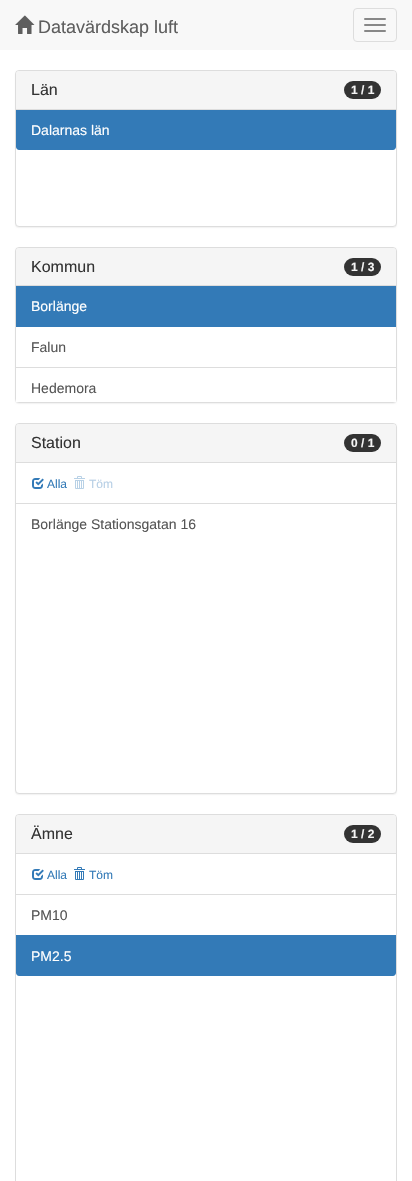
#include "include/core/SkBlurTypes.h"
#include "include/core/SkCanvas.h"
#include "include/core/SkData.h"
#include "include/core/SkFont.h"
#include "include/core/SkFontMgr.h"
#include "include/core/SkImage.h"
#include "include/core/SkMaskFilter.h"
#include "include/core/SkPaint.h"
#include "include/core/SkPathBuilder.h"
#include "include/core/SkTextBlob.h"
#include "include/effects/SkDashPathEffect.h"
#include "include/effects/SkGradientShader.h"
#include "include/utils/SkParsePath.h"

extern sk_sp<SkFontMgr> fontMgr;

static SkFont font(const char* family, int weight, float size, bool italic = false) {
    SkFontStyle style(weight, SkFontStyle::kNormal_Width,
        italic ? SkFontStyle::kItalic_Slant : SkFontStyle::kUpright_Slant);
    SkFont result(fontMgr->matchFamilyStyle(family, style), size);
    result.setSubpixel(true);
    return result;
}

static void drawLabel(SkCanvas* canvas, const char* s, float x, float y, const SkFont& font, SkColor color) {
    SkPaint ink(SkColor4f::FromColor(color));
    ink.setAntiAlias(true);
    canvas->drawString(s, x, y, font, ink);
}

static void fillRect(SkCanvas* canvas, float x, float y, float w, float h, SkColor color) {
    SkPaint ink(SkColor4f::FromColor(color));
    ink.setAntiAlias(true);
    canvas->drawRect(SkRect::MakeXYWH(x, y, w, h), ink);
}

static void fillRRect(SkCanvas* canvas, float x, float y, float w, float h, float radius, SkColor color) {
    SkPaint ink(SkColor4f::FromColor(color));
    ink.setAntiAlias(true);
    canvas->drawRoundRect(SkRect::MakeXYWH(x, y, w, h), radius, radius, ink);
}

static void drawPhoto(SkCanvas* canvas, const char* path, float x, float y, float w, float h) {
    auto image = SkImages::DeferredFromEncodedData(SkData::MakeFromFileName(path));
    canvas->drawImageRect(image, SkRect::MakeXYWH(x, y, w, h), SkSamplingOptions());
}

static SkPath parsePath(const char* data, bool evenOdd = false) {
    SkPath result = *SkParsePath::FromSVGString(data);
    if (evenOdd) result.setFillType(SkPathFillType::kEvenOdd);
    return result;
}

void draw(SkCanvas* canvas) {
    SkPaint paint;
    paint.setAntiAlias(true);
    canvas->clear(0xFFFFFFFF);
    fillRect(canvas, 0, 0, 412, 50, 0xFFF8F8F8);
    drawPhoto(canvas, "assets/img1.png", 15, 15, 20, 19);
    SkFont font1 = font("Liberation Sans", 400, 18);
    drawLabel(canvas, "Datavärdskap luft", 38, 33, font1, 0xFF5E5E5E);
    paint.setStroke(true);
    paint.setStrokeWidth(1);
    paint.setColor(0xFFDDDDDD);
    canvas->drawRoundRect(SkRect::MakeXYWH(353.5f, 8.5f, 43, 33), 3.5f, 3.5f, paint);
    fillRRect(canvas, 364, 18, 22, 2, 1, 0xFF888888);
    fillRRect(canvas, 364, 24, 22, 2, 1, 0xFF888888);
    fillRRect(canvas, 364, 30, 22, 2, 1, 0xFF888888);
    paint.setStroke(false);
    paint.setColor(0x0D000000);
    paint.setMaskFilter(SkMaskFilter::MakeBlur(kNormal_SkBlurStyle, 0.5f));
    canvas->drawRoundRect(SkRect::MakeXYWH(15, 71, 382, 157), 4, 4, paint);
    paint.setMaskFilter(nullptr);
    paint.setColor(0xFFFFFFFF);
    canvas->drawRoundRect(SkRect::MakeXYWH(15.5f, 70.5f, 381, 156), 3.5f, 3.5f, paint);
    paint.setStroke(true);
    paint.setColor(0xFFDDDDDD);
    canvas->drawRoundRect(SkRect::MakeXYWH(15.5f, 70.5f, 381, 156), 3.5f, 3.5f, paint);
    paint.setStroke(false);
    paint.setColor(0xFFF5F5F5);
    canvas->drawPath(parsePath("M19 71H393C394.5 71 396 72.5 396 74V110H16V74C16 72.5 17.5 71 19 71Z"), paint);
    fillRect(canvas, 16, 109, 380, 1, 0xFFDDDDDD);
    SkFont font2 = font("Liberation Sans", 400, 16);
    drawLabel(canvas, "Län", 31, 95, font2, 0xFF333333);
    fillRRect(canvas, 344, 81, 37, 18, 9, 0xFF333333);
    SkFont font3 = font("Liberation Sans", 700, 12);
    drawLabel(canvas, "1 / 1", 351, 94, font3, 0xFFF5F5F5);
    paint.setColor(0xFF337AB7);
    canvas->drawPath(parsePath("M16 110H396V147C396 148.5 394.5 150 393 150H19C17.5 150 16 148.5 16 147Z"), paint);
    SkFont font4 = font("Liberation Sans", 400, 14);
    drawLabel(canvas, "Dalarnas län", 31, 135, font4, 0xFFFFFFFF);
    paint.setColor(0x0D000000);
    paint.setMaskFilter(SkMaskFilter::MakeBlur(kNormal_SkBlurStyle, 0.5f));
    canvas->drawRoundRect(SkRect::MakeXYWH(15, 248, 382, 156), 4, 4, paint);
    paint.setMaskFilter(nullptr);
    paint.setColor(0xFFFFFFFF);
    canvas->drawRoundRect(SkRect::MakeXYWH(15.5f, 247.5f, 381, 155), 3.5f, 3.5f, paint);
    paint.setStroke(true);
    paint.setColor(0xFFDDDDDD);
    canvas->drawRoundRect(SkRect::MakeXYWH(15.5f, 247.5f, 381, 155), 3.5f, 3.5f, paint);
    paint.setStroke(false);
    paint.setColor(0xFFF5F5F5);
    canvas->drawPath(parsePath("M19 248H393C394.5 248 396 249.5 396 251V286H16V251C16 249.5 17.5 248 19 248Z"), paint);
    fillRect(canvas, 16, 285, 380, 1, 0xFFDDDDDD);
    drawLabel(canvas, "Kommun", 31, 272, font2, 0xFF333333);
    fillRRect(canvas, 344, 258, 37, 18, 9, 0xFF333333);
    drawLabel(canvas, "1 / 3", 351, 271, font3, 0xFFF5F5F5);
    fillRect(canvas, 16, 286, 380, 41, 0xFF337AB7);
    drawLabel(canvas, "Borlänge", 31, 311, font4, 0xFFFFFFFF);
    drawLabel(canvas, "Falun", 31, 352, font4, 0xFF555555);
    fillRect(canvas, 16, 399, 380, 3, 0xFFFFFFFF);
    fillRect(canvas, 16, 367, 380, 1, 0xFFDDDDDD);
    drawLabel(canvas, "Hedemora", 31, 393, font4, 0xFF555555);
    paint.setColor(0x0D000000);
    paint.setMaskFilter(SkMaskFilter::MakeBlur(kNormal_SkBlurStyle, 0.5f));
    canvas->drawRoundRect(SkRect::MakeXYWH(15, 424, 382, 371), 4, 4, paint);
    paint.setMaskFilter(nullptr);
    paint.setColor(0xFFFFFFFF);
    canvas->drawRoundRect(SkRect::MakeXYWH(15.5f, 423.5f, 381, 370), 3.5f, 3.5f, paint);
    paint.setStroke(true);
    paint.setColor(0xFFDDDDDD);
    canvas->drawRoundRect(SkRect::MakeXYWH(15.5f, 423.5f, 381, 370), 3.5f, 3.5f, paint);
    paint.setStroke(false);
    paint.setColor(0xFFF5F5F5);
    canvas->drawPath(parsePath("M19 424H393C394.5 424 396 425.5 396 427V463H16V427C16 425.5 17.5 424 19 424Z"), paint);
    fillRect(canvas, 16, 462, 380, 1, 0xFFDDDDDD);
    drawLabel(canvas, "Station", 31, 448, font2, 0xFF333333);
    fillRRect(canvas, 344, 434, 37, 18, 9, 0xFF333333);
    drawLabel(canvas, "0 / 1", 351, 447, font3, 0xFFF5F5F5);
    drawPhoto(canvas, "assets/img2.png", 32, 478, 12, 11);
    SkFont font5 = font("Liberation Sans", 400, 12);
    drawLabel(canvas, "Alla", 47, 488, font5, 0xFF337AB7);
    drawPhoto(canvas, "assets/img3.png", 74, 476, 11, 13);
    drawLabel(canvas, "Töm", 89, 488, font5, 0xFFB8D0E6);
    fillRect(canvas, 16, 503, 380, 1, 0xFFDDDDDD);
    drawLabel(canvas, "Borlänge Stationsgatan 16", 31, 529, font4, 0xFF555555);
    paint.setStroke(true);
    paint.setColor(0xFFDDDDDD);
    canvas->drawRoundRect(SkRect::MakeXYWH(15.5f, 814.5f, 381, 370), 3.5f, 3.5f, paint);
    paint.setStroke(false);
    paint.setColor(0xFFF5F5F5);
    canvas->drawPath(parsePath("M19 815H393C394.5 815 396 816.5 396 818V854H16V818C16 816.5 17.5 815 19 815Z"), paint);
    fillRect(canvas, 16, 853, 380, 1, 0xFFDDDDDD);
    drawLabel(canvas, "Ämne", 31, 839, font2, 0xFF333333);
    fillRRect(canvas, 344, 825, 37, 18, 9, 0xFF333333);
    drawLabel(canvas, "1 / 2", 351, 838, font3, 0xFFF5F5F5);
    drawPhoto(canvas, "assets/img2.png", 32, 869, 12, 11);
    drawLabel(canvas, "Alla", 47, 879, font5, 0xFF337AB7);
    drawPhoto(canvas, "assets/img4.png", 74, 867, 11, 13);
    drawLabel(canvas, "Töm", 89, 879, font5, 0xFF337AB7);
    fillRect(canvas, 16, 894, 380, 1, 0xFFDDDDDD);
    drawLabel(canvas, "PM10", 31, 920, font4, 0xFF555555);
    paint.setColor(0xFF337AB7);
    canvas->drawPath(parsePath("M16 935H396V973C396 974.5 394.5 976 393 976H19C17.5 976 16 974.5 16 973Z"), paint);
    drawLabel(canvas, "PM2.5", 31, 961, font4, 0xFFFFFFFF);
}
